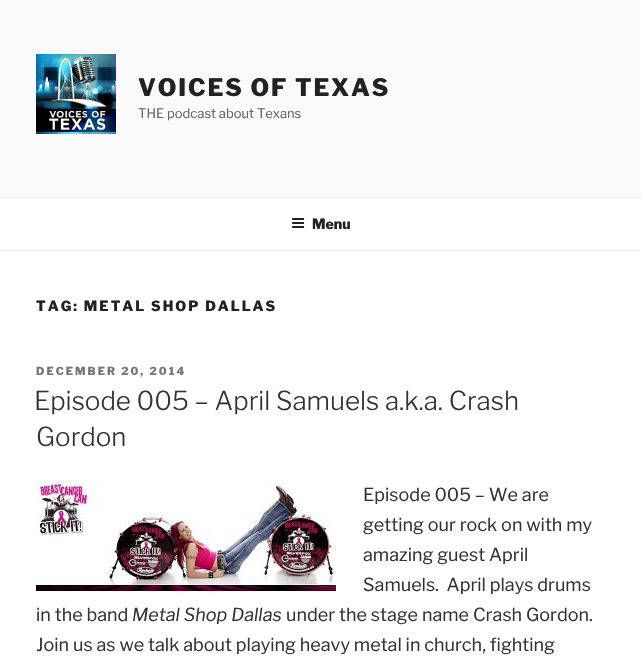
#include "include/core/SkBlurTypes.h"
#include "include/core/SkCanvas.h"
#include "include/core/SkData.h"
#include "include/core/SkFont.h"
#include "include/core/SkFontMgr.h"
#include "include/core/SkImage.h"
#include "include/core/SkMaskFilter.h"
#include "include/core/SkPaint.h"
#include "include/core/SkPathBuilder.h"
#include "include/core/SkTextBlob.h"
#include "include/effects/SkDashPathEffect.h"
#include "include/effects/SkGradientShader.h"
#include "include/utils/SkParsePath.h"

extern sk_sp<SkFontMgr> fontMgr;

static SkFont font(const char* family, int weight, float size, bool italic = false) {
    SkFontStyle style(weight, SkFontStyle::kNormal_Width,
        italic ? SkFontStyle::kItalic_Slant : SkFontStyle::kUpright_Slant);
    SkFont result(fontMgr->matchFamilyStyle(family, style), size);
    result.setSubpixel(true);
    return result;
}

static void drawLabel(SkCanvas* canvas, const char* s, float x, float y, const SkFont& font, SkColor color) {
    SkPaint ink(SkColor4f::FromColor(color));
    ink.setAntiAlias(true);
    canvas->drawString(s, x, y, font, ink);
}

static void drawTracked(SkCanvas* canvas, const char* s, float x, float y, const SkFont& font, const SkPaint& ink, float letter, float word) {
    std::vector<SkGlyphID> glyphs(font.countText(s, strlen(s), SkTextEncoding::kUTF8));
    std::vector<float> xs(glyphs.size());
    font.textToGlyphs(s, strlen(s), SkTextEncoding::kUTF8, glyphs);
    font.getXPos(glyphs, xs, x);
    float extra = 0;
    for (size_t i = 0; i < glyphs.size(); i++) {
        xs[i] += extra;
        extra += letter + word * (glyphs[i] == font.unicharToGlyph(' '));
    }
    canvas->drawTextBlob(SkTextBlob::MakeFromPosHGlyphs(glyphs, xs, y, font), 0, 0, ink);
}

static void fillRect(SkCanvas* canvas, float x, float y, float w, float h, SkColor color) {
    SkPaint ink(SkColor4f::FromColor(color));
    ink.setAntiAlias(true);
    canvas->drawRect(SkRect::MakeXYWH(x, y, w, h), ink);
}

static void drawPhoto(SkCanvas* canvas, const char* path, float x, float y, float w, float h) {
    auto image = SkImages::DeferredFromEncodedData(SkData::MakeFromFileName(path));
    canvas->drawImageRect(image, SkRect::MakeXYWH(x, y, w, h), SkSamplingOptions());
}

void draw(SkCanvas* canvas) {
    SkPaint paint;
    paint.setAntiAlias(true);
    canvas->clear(0xFFFFFFFF);
    fillRect(canvas, 0, 0, 641, 197, 0xFFFAFAFA);
    drawPhoto(canvas, "assets/img1.png", 36, 54, 80, 80);
    SkFont font1 = font("Libre Franklin", 800, 24);
    paint.setColor(0xFF222222);
    drawTracked(canvas, "VOICES OF TEXAS", 138, 96, font1, paint, 1.9f, 0);
    SkFont font2 = font("Libre Franklin", 400, 13);
    drawLabel(canvas, "THE podcast about Texans", 138, 118, font2, 0xFF666666);
    fillRect(canvas, 0, 197, 641, 1, 0xFFEEEEEE);
    fillRect(canvas, 0, 250, 641, 1, 0xFFEEEEEE);
    drawPhoto(canvas, "assets/img2.png", 292, 218, 13, 10);
    SkFont font3 = font("Libre Franklin", 800, 14);
    drawLabel(canvas, "Menu", 312, 229, font3, 0xFF222222);
    drawTracked(canvas, "TAG: METAL SHOP DALLAS", 36, 311, font3, paint, 2, 0);
    SkFont font4 = font("Libre Franklin", 800, 11);
    paint.setColor(0xFF767676);
    drawTracked(canvas, "DECEMBER 20, 2014", 36, 375, font4, paint, 2, 0);
    SkFont font5 = font("Libre Franklin", 300, 26);
    drawLabel(canvas, "Episode 005 – April Samuels a.k.a. Crash", 34, 410, font5, 0xFF333333);
    drawLabel(canvas, "Gordon", 36, 446, font5, 0xFF333333);
    drawPhoto(canvas, "assets/img3.png", 36, 480, 300, 111);
    SkFont font6 = font("Libre Franklin", 400, 18);
    drawLabel(canvas, "Episode 005 – We are", 363, 501, font6, 0xFF333333);
    drawLabel(canvas, "getting our rock on with my", 363, 531, font6, 0xFF333333);
    drawLabel(canvas, "amazing guest April", 363, 561, font6, 0xFF333333);
    drawLabel(canvas, "Samuels.  April plays drums", 363, 591, font6, 0xFF333333);
    drawLabel(canvas, "in the band", 36, 621, font6, 0xFF333333);
    SkFont font7 = font("Libre Franklin", 400, 18, true);
    drawLabel(canvas, "Metal Shop Dallas", 132, 621, font7, 0xFF333333);
    drawLabel(canvas, "under the stage name Crash Gordon.", 286, 621, font6, 0xFF333333);
    drawLabel(canvas, "Join us as we talk about playing heavy metal in church, fighting", 36, 651, font6, 0xFF333333);
}
